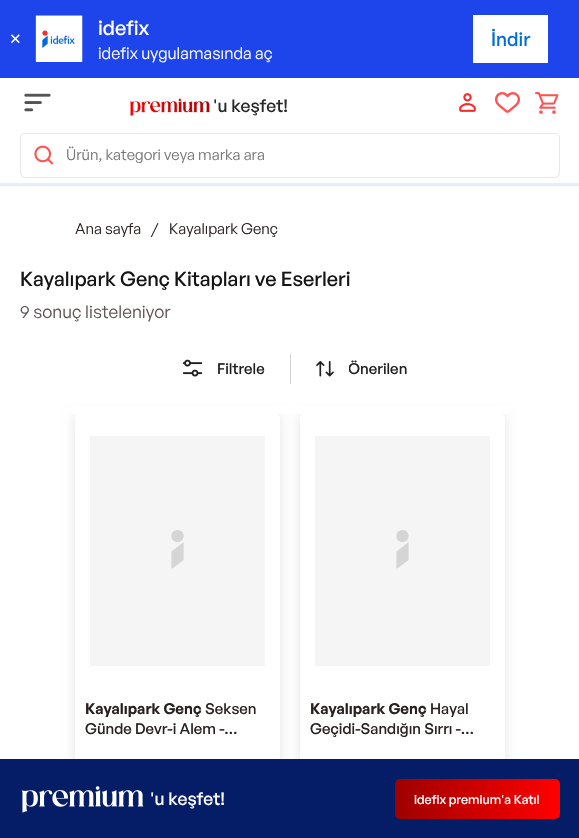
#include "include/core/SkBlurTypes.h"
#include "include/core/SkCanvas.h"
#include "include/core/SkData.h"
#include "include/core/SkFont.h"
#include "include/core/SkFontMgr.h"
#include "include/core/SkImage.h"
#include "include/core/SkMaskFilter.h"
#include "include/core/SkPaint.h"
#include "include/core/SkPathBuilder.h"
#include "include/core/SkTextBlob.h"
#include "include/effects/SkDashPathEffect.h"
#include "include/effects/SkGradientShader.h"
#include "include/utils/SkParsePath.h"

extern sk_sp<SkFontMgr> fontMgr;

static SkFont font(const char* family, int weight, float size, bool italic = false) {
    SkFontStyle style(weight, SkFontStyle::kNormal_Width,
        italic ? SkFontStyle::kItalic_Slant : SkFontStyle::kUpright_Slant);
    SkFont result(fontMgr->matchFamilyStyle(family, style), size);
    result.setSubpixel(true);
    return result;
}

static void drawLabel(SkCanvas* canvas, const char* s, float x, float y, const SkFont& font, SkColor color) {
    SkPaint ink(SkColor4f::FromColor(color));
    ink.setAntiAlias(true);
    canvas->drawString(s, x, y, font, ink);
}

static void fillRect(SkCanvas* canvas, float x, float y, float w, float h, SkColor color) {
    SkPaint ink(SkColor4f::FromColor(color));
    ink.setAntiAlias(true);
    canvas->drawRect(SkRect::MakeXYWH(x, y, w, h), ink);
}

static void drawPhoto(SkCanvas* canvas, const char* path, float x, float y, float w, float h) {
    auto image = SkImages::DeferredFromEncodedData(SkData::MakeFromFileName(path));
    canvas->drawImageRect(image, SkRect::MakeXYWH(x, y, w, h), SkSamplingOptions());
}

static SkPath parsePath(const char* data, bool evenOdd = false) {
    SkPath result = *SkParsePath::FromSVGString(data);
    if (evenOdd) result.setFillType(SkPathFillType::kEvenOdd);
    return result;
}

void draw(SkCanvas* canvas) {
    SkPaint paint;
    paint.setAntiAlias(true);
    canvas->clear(0xFFFFFFFF);
    fillRect(canvas, 0, 0, 579, 78, 0xFF1E44EC);
    drawPhoto(canvas, "assets/img1.png", 11, 34, 9, 10);
    drawPhoto(canvas, "assets/img2.png", 35, 15, 48, 47);
    SkFont font1 = font("General Sans", 500, 20);
    drawLabel(canvas, "idefix", 98, 35, font1, 0xFFFFFFFF);
    SkFont font2 = font("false", 400, 16.25f);
    drawLabel(canvas, "idefix uygulamasında aç", 98, 59, font2, 0xFFFFFFFF);
    fillRect(canvas, 473, 15, 75, 48, 0xFFFFFFFF);
    SkFont font3 = font("General Sans", 500, 19);
    drawLabel(canvas, "İndir", 491, 46, font3, 0xFF006BDC);
    drawPhoto(canvas, "assets/img3.png", 24, 93, 27, 19);
    drawPhoto(canvas, "assets/img4.png", 130, 98, 80, 18);
    SkFont font4 = font("General Sans", 500, 17.5f);
    drawLabel(canvas, "'u keşfet!", 213, 112, font4, 0xFF282828);
    drawPhoto(canvas, "assets/img5.png", 459, 93, 17, 19);
    drawPhoto(canvas, "assets/img6.png", 495, 92, 25, 21);
    drawPhoto(canvas, "assets/img7.png", 535, 92, 24, 22);
    paint.setStroke(true);
    paint.setStrokeWidth(1);
    paint.setColor(0xFFE5E7EB);
    canvas->drawRoundRect(SkRect::MakeXYWH(20.5f, 133.5f, 539, 44), 4.5f, 4.5f, paint);
    drawPhoto(canvas, "assets/img8.png", 34, 145, 20, 20);
    SkFont font5 = font("false", 400, 15);
    drawLabel(canvas, "Ürün, kategori veya marka ara", 66, 160, font5, 0xFF757575);
    fillRect(canvas, 0, 183, 579, 3, 0xFFE7ECFE);
    drawLabel(canvas, "Ana sayfa", 75, 234, font5, 0xFF292020);
    drawLabel(canvas, "/", 151, 234, font5, 0xFF292020);
    drawLabel(canvas, "Kayalıpark Genç", 169, 234, font5, 0xFF292020);
    drawLabel(canvas, "Kayalıpark Genç Kitapları ve Eserleri", 20, 286, font1, 0xFF141414);
    SkFont font6 = font("false", 400, 17.5f);
    drawLabel(canvas, "9 sonuç listeleniyor", 20, 318, font6, 0xFF5F5353);
    canvas->save();
    canvas->clipPath(parsePath("M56 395H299V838H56ZM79 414H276C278 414 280 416 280 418V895C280 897 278 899 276 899H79C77 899 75 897 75 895V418C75 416 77 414 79 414Z", true), true);
    paint.setStroke(false);
    paint.setColor(0x1A000000);
    paint.setMaskFilter(SkMaskFilter::MakeBlur(kNormal_SkBlurStyle, 6));
    canvas->drawRoundRect(SkRect::MakeXYWH(75, 414, 205, 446), 4, 4, paint);
    paint.setMaskFilter(nullptr);
    canvas->restore();
    canvas->save();
    canvas->clipPath(parsePath("M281 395H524V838H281ZM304 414H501C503 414 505 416 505 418V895C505 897 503 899 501 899H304C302 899 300 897 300 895V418C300 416 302 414 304 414Z", true), true);
    paint.setMaskFilter(SkMaskFilter::MakeBlur(kNormal_SkBlurStyle, 6));
    canvas->drawRoundRect(SkRect::MakeXYWH(300, 414, 205, 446), 4, 4, paint);
    paint.setMaskFilter(nullptr);
    canvas->restore();
    fillRect(canvas, 71, 406, 438, 8, 0xFFFFFFFF);
    drawPhoto(canvas, "assets/img9.png", 182, 359, 21, 18);
    SkFont font7 = font("General Sans", 500, 15);
    drawLabel(canvas, "Filtrele", 217, 374, font7, 0xFF1F1F1F);
    fillRect(canvas, 290, 354, 1, 30, 0xFFD1D5DB);
    drawPhoto(canvas, "assets/img10.png", 316, 361, 18, 16);
    canvas->save();
    canvas->clipRect(SkRect::MakeXYWH(349, 356, 59, 25));
    drawLabel(canvas, "Önerilen", 348, 374, font7, 0xFF1F1F1F);
    canvas->restore();
    fillRect(canvas, 90, 436, 175, 230, 0xFFF5F5F5);
    drawPhoto(canvas, "assets/img11.png", 171, 530, 13, 39);
    SkFont font8 = font("General Sans", 600, 15);
    drawLabel(canvas, "Kayalıpark Genç", 85, 714, font8, 0xFF292020);
    drawLabel(canvas, "Seksen", 205, 714, font7, 0xFF292020);
    drawLabel(canvas, "Günde Devr-i Alem -…", 85, 734, font7, 0xFF292020);
    fillRect(canvas, 315, 436, 175, 230, 0xFFF5F5F5);
    drawPhoto(canvas, "assets/img11.png", 396, 530, 13, 39);
    drawLabel(canvas, "Kayalıpark Genç", 310, 714, font8, 0xFF292020);
    drawLabel(canvas, "Hayal", 430, 714, font7, 0xFF292020);
    drawLabel(canvas, "Geçidi-Sandığın Sırrı -…", 310, 734, font7, 0xFF292020);
    fillRect(canvas, 0, 759, 579, 79, 0xFF051D67);
    drawPhoto(canvas, "assets/img12.png", 21, 786, 123, 27);
    drawLabel(canvas, "'u keşfet!", 150, 805, font4, 0xFFFFFFFF);
    {
        const SkColor colors[] = {0xFF9E0000, 0xFFFF0000};
        const float stops[] = {0, 1};
        const SkPoint ends[] = {{395, 799}, {560, 799}};
        paint.setShader(SkGradientShader::MakeLinear(ends, colors, stops, 2, SkTileMode::kClamp));
        paint.setAlpha(255);
    }
    canvas->drawRoundRect(SkRect::MakeXYWH(395, 779, 165, 40), 5, 5, paint);
    SkFont font9 = font("General Sans", 500, 12.5f);
    drawLabel(canvas, "idefix premium'a Katıl", 414, 804, font9, 0xFFFFFFFF);
}
